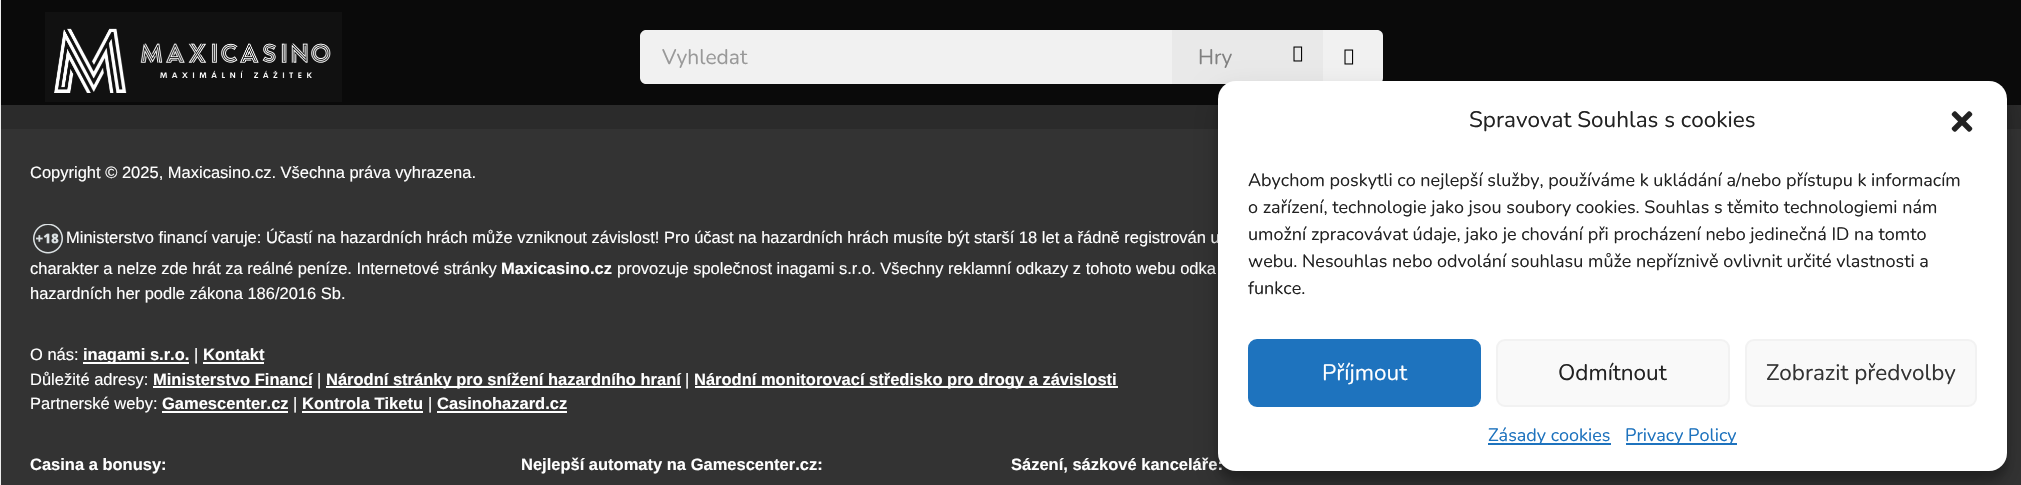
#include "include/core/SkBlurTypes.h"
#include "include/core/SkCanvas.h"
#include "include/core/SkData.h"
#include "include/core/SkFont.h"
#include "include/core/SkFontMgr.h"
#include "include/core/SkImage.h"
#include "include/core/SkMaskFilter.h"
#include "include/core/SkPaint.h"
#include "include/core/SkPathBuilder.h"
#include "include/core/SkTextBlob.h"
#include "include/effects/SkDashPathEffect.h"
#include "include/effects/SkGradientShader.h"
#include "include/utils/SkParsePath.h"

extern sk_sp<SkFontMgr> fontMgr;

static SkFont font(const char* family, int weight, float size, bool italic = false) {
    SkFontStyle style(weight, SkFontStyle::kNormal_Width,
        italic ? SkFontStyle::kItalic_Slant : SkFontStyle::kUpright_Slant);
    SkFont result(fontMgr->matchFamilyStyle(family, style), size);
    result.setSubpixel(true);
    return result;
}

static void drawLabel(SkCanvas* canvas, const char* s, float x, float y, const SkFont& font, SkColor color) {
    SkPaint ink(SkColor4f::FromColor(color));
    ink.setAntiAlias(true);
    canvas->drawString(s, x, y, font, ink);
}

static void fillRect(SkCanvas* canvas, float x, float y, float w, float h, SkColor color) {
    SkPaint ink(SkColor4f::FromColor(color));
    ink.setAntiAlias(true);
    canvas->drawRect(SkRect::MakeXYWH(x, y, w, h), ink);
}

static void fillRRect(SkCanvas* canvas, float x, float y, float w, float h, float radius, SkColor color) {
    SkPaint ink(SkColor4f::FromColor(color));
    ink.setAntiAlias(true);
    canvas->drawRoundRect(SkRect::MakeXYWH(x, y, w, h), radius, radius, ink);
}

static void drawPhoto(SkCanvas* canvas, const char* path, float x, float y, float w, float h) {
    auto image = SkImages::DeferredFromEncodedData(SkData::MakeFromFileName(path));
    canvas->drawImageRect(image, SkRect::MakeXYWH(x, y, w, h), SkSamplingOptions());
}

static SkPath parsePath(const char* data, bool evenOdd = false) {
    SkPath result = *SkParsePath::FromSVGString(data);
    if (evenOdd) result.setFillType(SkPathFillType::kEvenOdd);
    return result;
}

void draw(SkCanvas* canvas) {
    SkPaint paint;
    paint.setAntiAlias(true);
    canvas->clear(0xFF2B2B2B);
    fillRect(canvas, 0, 0, 1, 485, 0xFFEEEEEE);
    fillRect(canvas, 1, 0, 2020, 105, 0xFF0A0A0A);
    drawPhoto(canvas, "assets/img1.png", 45, 12, 297, 90);
    paint.setColor(0xFFF1F1F1);
    canvas->drawPath(parsePath("M647 30H1172V84H647C643.5 84 641 81.5 641 78V36C641 32.5 643.5 30 647 30Z"), paint);
    canvas->drawPath(parsePath("M646 30H1172V84H646C643 84 640 81 640 78V36C640 33 643 30 646 30ZM646 32H1172V82H646C644 82 642 80 642 78V36C642 34 644 32 646 32Z", true), paint);
    SkFont font1 = font("Nunito", 400, 21);
    drawLabel(canvas, "Vyhledat", 662, 64, font1, 0xFF999999);
    fillRect(canvas, 1172, 30, 151, 54, 0xFFE9E9E9);
    drawLabel(canvas, "Hry", 1198, 64, font1, 0xFF808080);
    drawPhoto(canvas, "assets/img2.png", 1293, 46, 10, 16);
    canvas->drawPath(parsePath("M1323 30H1377C1380.5 30 1383 32.5 1383 36V78C1383 81.5 1380.5 84 1377 84H1323Z"), paint);
    drawPhoto(canvas, "assets/img3.png", 1344, 49, 10, 16);
    fillRect(canvas, 1, 129, 2020, 356, 0xFF333333);
    SkFont font2 = font("Liberation Sans", 400, 16.5f);
    drawLabel(canvas, "Copyright © 2025, Maxicasino.cz. Všechna práva vyhrazena.", 30, 178, font2, 0xFFFFFFFF);
    drawPhoto(canvas, "assets/img4.png", 33, 224, 30, 30);
    drawLabel(canvas, "Ministerstvo financí varuje: Účastí na hazardních hrách může vzniknout závislost! Pro účast na hazardních hrách musíte být starší 18 let a řádně registrován u", 66, 243, font2, 0xFFFFFFFF);
    drawLabel(canvas, "charakter a nelze zde hrát za reálné peníze. Internetové stránky", 30, 274, font2, 0xFFFFFFFF);
    SkFont font3 = font("Liberation Sans", 700, 16.5f);
    drawLabel(canvas, "Maxicasino.cz", 501, 274, font3, 0xFFFFFFFF);
    drawLabel(canvas, "provozuje společnost inagami s.r.o. Všechny reklamní odkazy z tohoto webu odka", 617, 274, font2, 0xFFFFFFFF);
    drawLabel(canvas, "hazardních her podle zákona 186/2016 Sb.", 30, 299, font2, 0xFFFFFFFF);
    drawLabel(canvas, "O nás:", 30, 360, font2, 0xFFFFFFFF);
    fillRect(canvas, 83, 362, 106, 2, 0xFFFFFFFF);
    drawLabel(canvas, "inagami s.r.o.", 83, 360, font3, 0xFFFFFFFF);
    drawLabel(canvas, "|", 194, 360, font2, 0xFFFFFFFF);
    drawLabel(canvas, "Kontakt", 203, 360, font3, 0xFFFFFFFF);
    fillRect(canvas, 203, 362, 61, 2, 0xFFFFFFFF);
    drawLabel(canvas, "Důležité adresy:", 30, 385, font2, 0xFFFFFFFF);
    drawLabel(canvas, "Ministerstvo Financí", 153, 385, font3, 0xFFFFFFFF);
    fillRect(canvas, 153, 386, 159, 2, 0xFFFFFFFF);
    drawLabel(canvas, "|", 317, 385, font2, 0xFFFFFFFF);
    fillRect(canvas, 326, 386, 355, 2, 0xFFFFFFFF);
    drawLabel(canvas, "Národní stránky pro snížení hazardního hraní", 326, 385, font3, 0xFFFFFFFF);
    drawLabel(canvas, "|", 685, 385, font2, 0xFFFFFFFF);
    fillRect(canvas, 695, 386, 423, 2, 0xFFFFFFFF);
    drawLabel(canvas, "Národní monitorovací středisko pro drogy a závislosti", 694, 385, font3, 0xFFFFFFFF);
    drawLabel(canvas, "Partnerské weby:", 30, 409, font2, 0xFFFFFFFF);
    drawLabel(canvas, "Gamescenter.cz", 162, 409, font3, 0xFFFFFFFF);
    fillRect(canvas, 162, 411, 126, 2, 0xFFFFFFFF);
    drawLabel(canvas, "|", 293, 409, font2, 0xFFFFFFFF);
    drawLabel(canvas, "Kontrola Tiketu", 302, 409, font3, 0xFFFFFFFF);
    fillRect(canvas, 302, 411, 121, 2, 0xFFFFFFFF);
    drawLabel(canvas, "|", 428, 409, font2, 0xFFFFFFFF);
    drawLabel(canvas, "Casinohazard.cz", 437, 409, font3, 0xFFFFFFFF);
    fillRect(canvas, 437, 411, 130, 2, 0xFFFFFFFF);
    drawLabel(canvas, "Casina a bonusy:", 30, 470, font3, 0xFFFFFFFF);
    drawLabel(canvas, "Nejlepší automaty na Gamescenter.cz:", 521, 470, font3, 0xFFFFFFFF);
    drawLabel(canvas, "Sázení, sázkové kanceláře:", 1011, 470, font3, 0xFFFFFFFF);
    paint.setColor(0x3B000000);
    paint.setMaskFilter(SkMaskFilter::MakeBlur(kNormal_SkBlurStyle, 4.5f));
    canvas->drawRoundRect(SkRect::MakeXYWH(1218, 90, 789, 390), 18, 18, paint);
    paint.setMaskFilter(nullptr);
    paint.setColor(0x30000000);
    paint.setMaskFilter(SkMaskFilter::MakeBlur(kNormal_SkBlurStyle, 15));
    canvas->drawRoundRect(SkRect::MakeXYWH(1218, 96, 789, 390), 18, 18, paint);
    paint.setMaskFilter(nullptr);
    fillRRect(canvas, 1218, 81, 789, 390, 18, 0xFFFFFFFF);
    SkFont font4 = font("Nunito", 400, 22.5f);
    drawLabel(canvas, "Spravovat Souhlas s cookies", 1469, 127, font4, 0xFF222222);
    drawPhoto(canvas, "assets/img5.png", 1951, 111, 22, 21);
    SkFont font5 = font("Nunito", 400, 18);
    drawLabel(canvas, "Abychom poskytli co nejlepší služby, používáme k ukládání a/nebo přístupu k informacím", 1248, 186, font5, 0xFF222222);
    drawLabel(canvas, "o zařízení, technologie jako jsou soubory cookies. Souhlas s těmito technologiemi nám", 1248, 213, font5, 0xFF222222);
    drawLabel(canvas, "umožní zpracovávat údaje, jako je chování při procházení nebo jedinečná ID na tomto", 1248, 240, font5, 0xFF222222);
    drawLabel(canvas, "webu. Nesouhlas nebo odvolání souhlasu může nepříznivě ovlivnit určité vlastnosti a", 1248, 267, font5, 0xFF222222);
    drawLabel(canvas, "funkce.", 1248, 294, font5, 0xFF222222);
    paint.setColor(0xFF1E73BE);
    canvas->drawRoundRect(SkRect::MakeXYWH(1249, 340, 231, 66), 8, 8, paint);
    paint.setStroke(true);
    paint.setStrokeWidth(2);
    canvas->drawRoundRect(SkRect::MakeXYWH(1249, 340, 231, 66), 8, 8, paint);
    drawLabel(canvas, "Příjmout", 1322, 380, font4, 0xFFFFFFFF);
    paint.setStroke(false);
    paint.setColor(0xFFF9F9F9);
    canvas->drawRoundRect(SkRect::MakeXYWH(1497, 340, 232, 66), 8, 8, paint);
    paint.setStroke(true);
    paint.setColor(0xFFF2F2F2);
    canvas->drawRoundRect(SkRect::MakeXYWH(1497, 340, 232, 66), 8, 8, paint);
    drawLabel(canvas, "Odmítnout", 1558, 380, font4, 0xFF222222);
    paint.setStroke(false);
    paint.setColor(0xFFF9F9F9);
    canvas->drawRoundRect(SkRect::MakeXYWH(1746, 340, 230, 66), 8, 8, paint);
    paint.setStroke(true);
    paint.setColor(0xFFF2F2F2);
    canvas->drawRoundRect(SkRect::MakeXYWH(1746, 340, 230, 66), 8, 8, paint);
    drawLabel(canvas, "Zobrazit předvolby", 1766, 380, font4, 0xFF333333);
    fillRect(canvas, 1488, 443, 123, 2, 0xFF1E73BE);
    drawLabel(canvas, "Zásady cookies", 1488, 441, font5, 0xFF1E73BE);
    fillRect(canvas, 1626, 443, 111, 2, 0xFF1E73BE);
    drawLabel(canvas, "Privacy Policy", 1625, 441, font5, 0xFF1E73BE);
}
